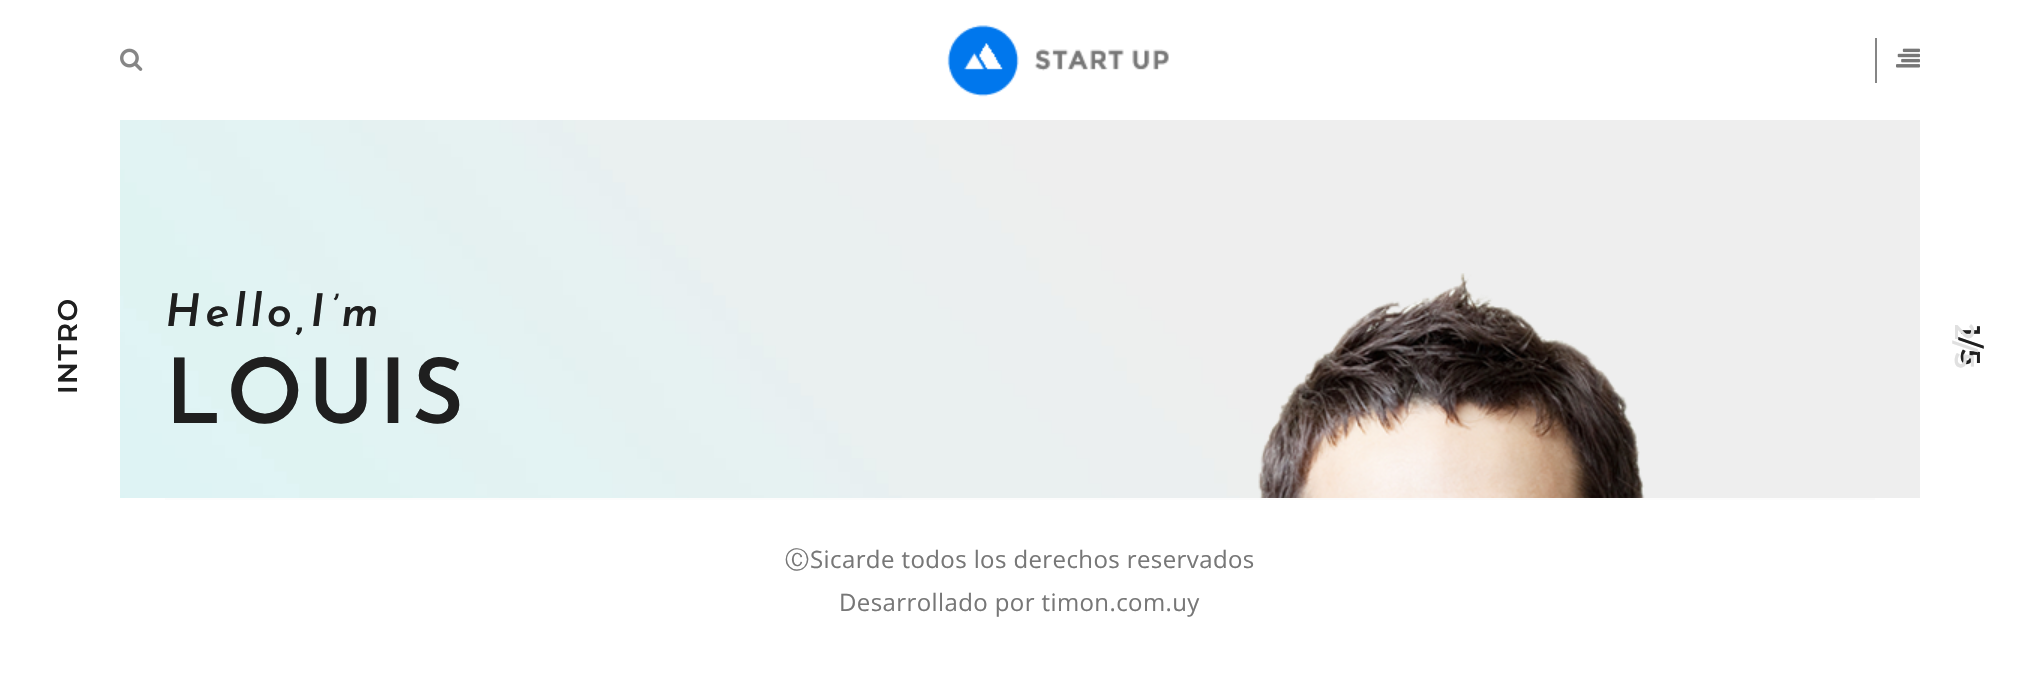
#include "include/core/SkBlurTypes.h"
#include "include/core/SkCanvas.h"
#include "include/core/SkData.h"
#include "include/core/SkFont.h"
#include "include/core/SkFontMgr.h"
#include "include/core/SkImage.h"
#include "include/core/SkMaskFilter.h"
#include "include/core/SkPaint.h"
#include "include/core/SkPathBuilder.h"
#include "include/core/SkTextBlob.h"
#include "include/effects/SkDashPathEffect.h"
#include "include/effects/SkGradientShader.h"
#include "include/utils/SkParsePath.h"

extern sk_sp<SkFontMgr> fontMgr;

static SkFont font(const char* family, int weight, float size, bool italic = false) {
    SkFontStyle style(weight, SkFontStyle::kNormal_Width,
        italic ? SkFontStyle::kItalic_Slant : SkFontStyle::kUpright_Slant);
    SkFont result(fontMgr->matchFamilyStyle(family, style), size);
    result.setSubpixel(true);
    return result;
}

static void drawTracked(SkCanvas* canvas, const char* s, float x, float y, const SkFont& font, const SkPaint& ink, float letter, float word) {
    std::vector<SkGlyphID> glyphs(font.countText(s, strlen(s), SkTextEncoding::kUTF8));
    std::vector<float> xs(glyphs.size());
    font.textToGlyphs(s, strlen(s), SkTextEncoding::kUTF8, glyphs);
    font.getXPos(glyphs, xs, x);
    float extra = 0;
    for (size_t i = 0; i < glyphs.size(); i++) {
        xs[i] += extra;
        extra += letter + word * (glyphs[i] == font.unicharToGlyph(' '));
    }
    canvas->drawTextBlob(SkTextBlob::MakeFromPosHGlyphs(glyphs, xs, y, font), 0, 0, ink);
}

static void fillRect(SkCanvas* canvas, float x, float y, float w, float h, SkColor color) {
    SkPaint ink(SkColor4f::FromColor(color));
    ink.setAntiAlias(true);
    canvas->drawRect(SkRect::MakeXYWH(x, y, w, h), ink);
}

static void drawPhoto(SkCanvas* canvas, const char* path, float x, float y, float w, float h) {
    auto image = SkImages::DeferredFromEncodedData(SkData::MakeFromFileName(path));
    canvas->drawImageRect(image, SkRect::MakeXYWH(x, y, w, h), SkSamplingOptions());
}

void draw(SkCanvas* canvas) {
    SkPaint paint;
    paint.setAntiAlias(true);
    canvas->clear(0xFFFFFFFF);
    drawPhoto(canvas, "assets/img1.png", 120, 48, 23, 23);
    drawPhoto(canvas, "assets/img2.png", 947, 25, 222, 72);
    fillRect(canvas, 1875, 38, 2, 45, 0xFF868686);
    drawPhoto(canvas, "assets/img3.png", 1896, 48, 24, 20);
    drawPhoto(canvas, "assets/img4.png", 120, 120, 1800, 378);
    SkFont font1 = font("Josefin Sans", 600, 45, true);
    paint.setColor(0xFF1F1F1F);
    drawTracked(canvas, "Hello,I’m", 165, 326, font1, paint, 4.5f, 0);
    SkFont font2 = font("Josefin Sans", 600, 90);
    drawTracked(canvas, "LOUIS", 165, 423, font2, paint, 4.5f, 0);
    drawPhoto(canvas, "assets/img5.png", 1258, 273, 387, 225);
    SkFont font3 = font("Montserrat", 600, 27);
    canvas->save();
    canvas->rotate(-90, 77, 394);
    drawTracked(canvas, "INTRO", 77, 394, font3, paint, 1.5f, 0);
    canvas->restore();
    canvas->save();
    canvas->rotate(90, 1961, 326);
    drawTracked(canvas, "1/5", 1961, 326, font3, paint, 1.5f, 0);
    canvas->restore();
    paint.setColor(0xFFE0E0E0);
    canvas->save();
    canvas->rotate(90, 1955, 324);
    drawTracked(canvas, "2/5", 1955, 324, font3, paint, 1.5f, 0);
    canvas->restore();
    fillRect(canvas, 165, 498, 1710, 2, 0xFFFCFCFC);
    SkFont font4 = font("WenQuanYi Zen Hei", 500, 24);
    paint.setColor(0xFF777777);
    drawTracked(canvas, "Ⓒ", 785, 568, font4, paint, 0.4f, 0);
    SkFont font5 = font("Open Sans", 400, 24);
    drawTracked(canvas, "Sicarde todos los derechos reservados", 810, 568, font5, paint, 0.4f, 0);
    drawTracked(canvas, "Desarrollado por timon.com.uy", 839, 611, font5, paint, 0.4f, 0);
}
